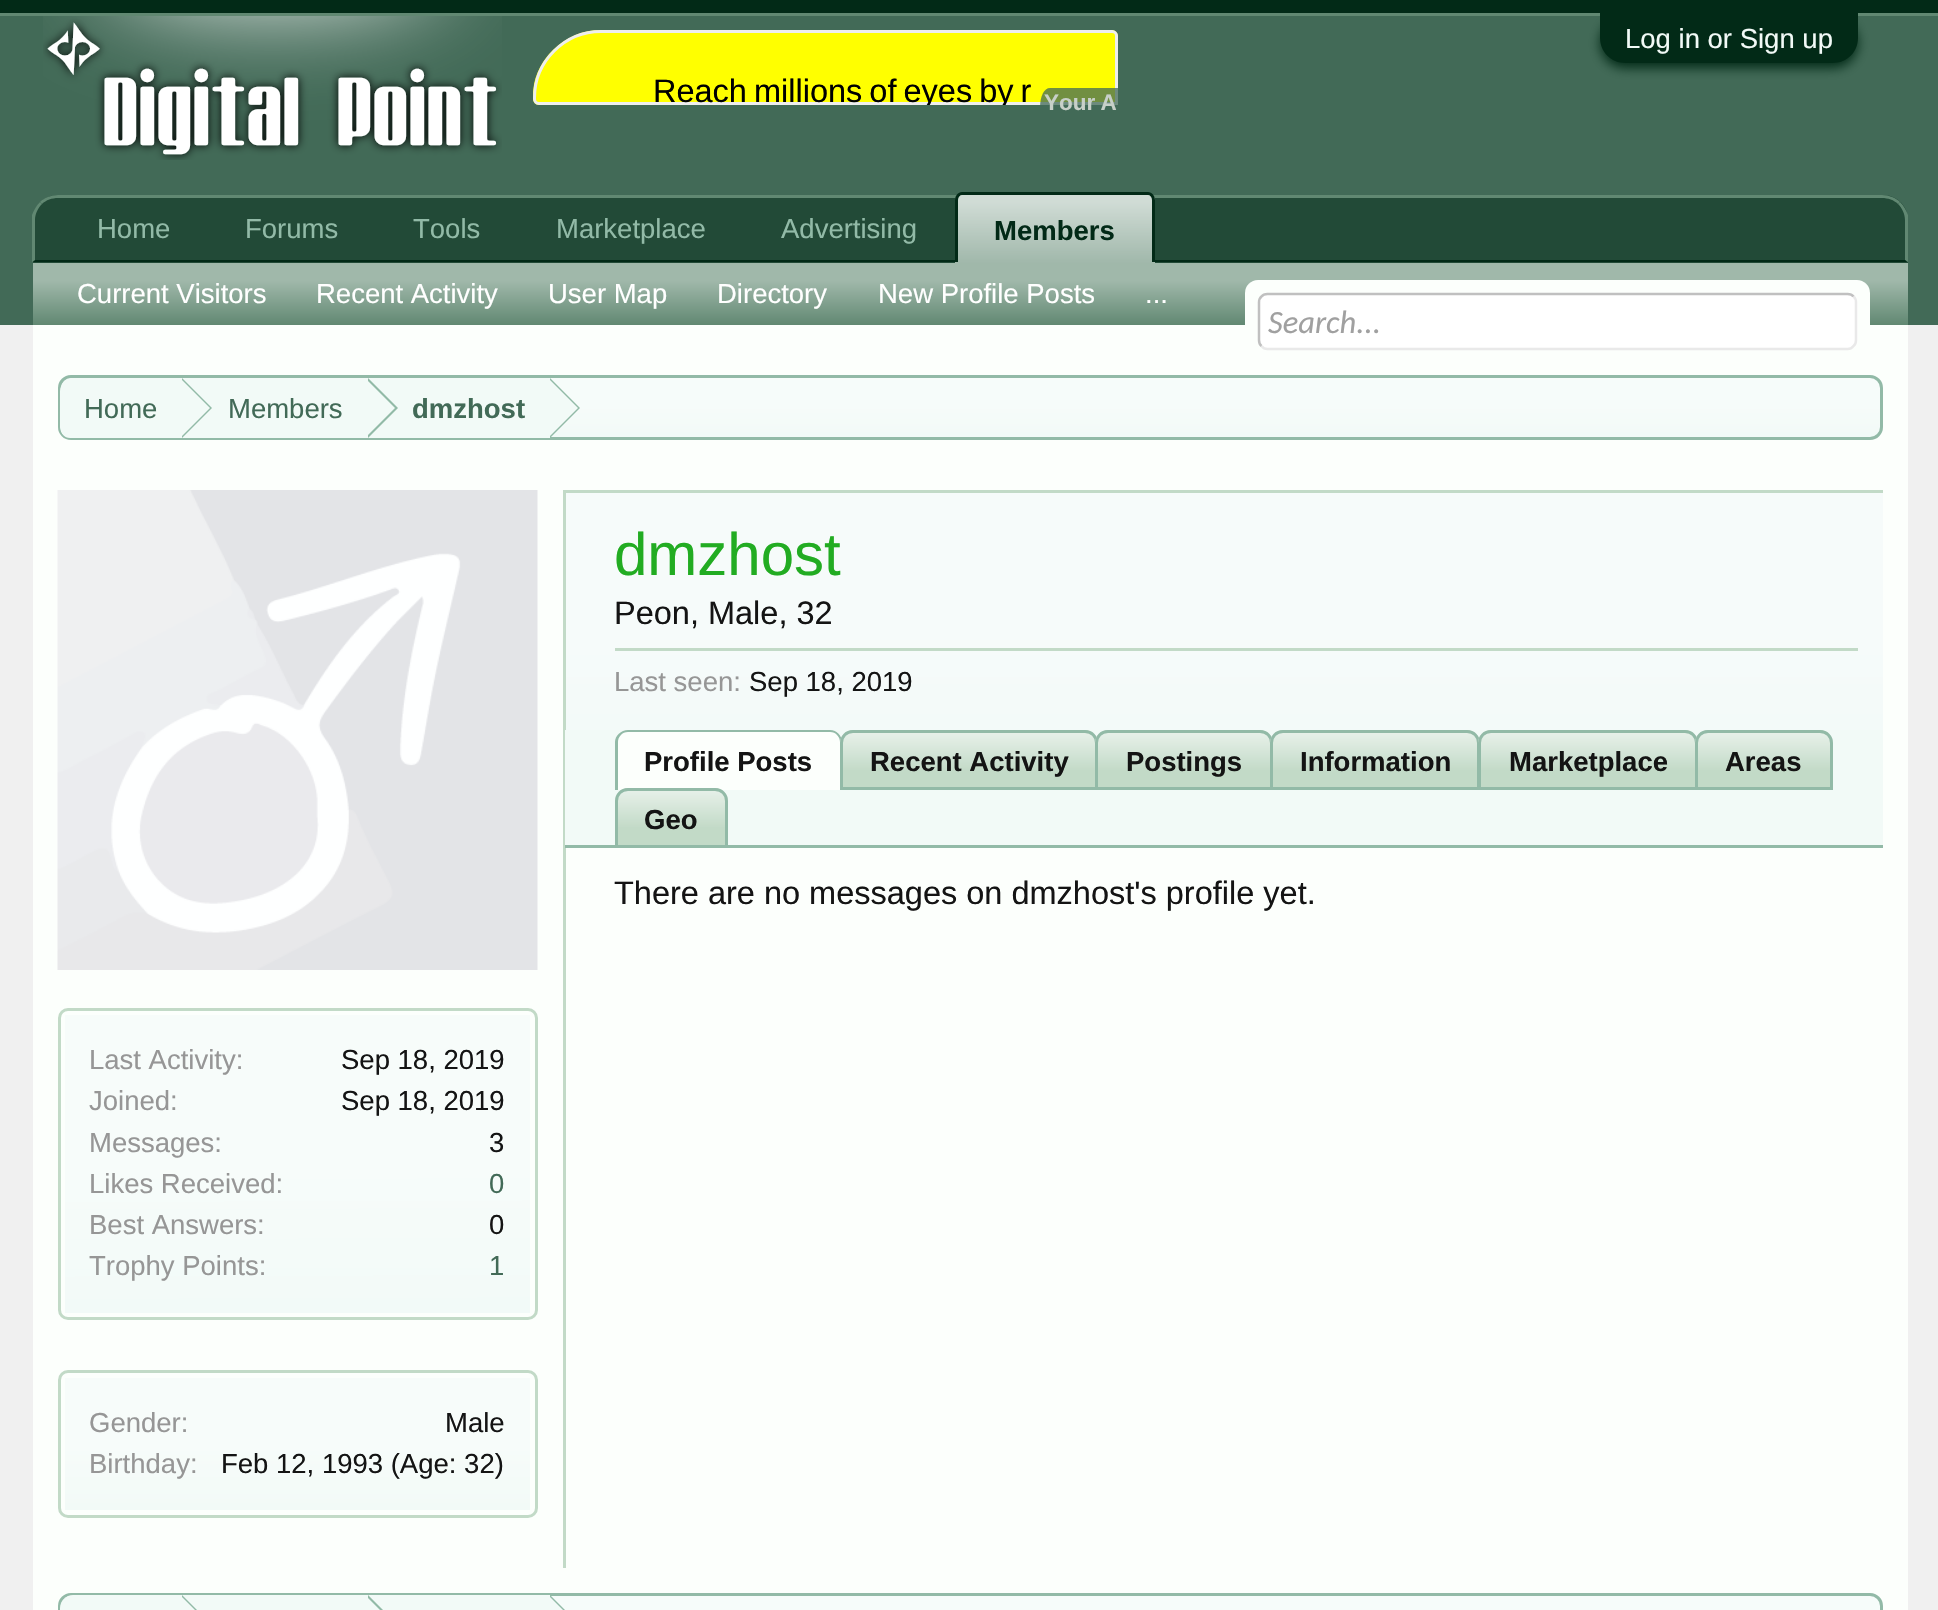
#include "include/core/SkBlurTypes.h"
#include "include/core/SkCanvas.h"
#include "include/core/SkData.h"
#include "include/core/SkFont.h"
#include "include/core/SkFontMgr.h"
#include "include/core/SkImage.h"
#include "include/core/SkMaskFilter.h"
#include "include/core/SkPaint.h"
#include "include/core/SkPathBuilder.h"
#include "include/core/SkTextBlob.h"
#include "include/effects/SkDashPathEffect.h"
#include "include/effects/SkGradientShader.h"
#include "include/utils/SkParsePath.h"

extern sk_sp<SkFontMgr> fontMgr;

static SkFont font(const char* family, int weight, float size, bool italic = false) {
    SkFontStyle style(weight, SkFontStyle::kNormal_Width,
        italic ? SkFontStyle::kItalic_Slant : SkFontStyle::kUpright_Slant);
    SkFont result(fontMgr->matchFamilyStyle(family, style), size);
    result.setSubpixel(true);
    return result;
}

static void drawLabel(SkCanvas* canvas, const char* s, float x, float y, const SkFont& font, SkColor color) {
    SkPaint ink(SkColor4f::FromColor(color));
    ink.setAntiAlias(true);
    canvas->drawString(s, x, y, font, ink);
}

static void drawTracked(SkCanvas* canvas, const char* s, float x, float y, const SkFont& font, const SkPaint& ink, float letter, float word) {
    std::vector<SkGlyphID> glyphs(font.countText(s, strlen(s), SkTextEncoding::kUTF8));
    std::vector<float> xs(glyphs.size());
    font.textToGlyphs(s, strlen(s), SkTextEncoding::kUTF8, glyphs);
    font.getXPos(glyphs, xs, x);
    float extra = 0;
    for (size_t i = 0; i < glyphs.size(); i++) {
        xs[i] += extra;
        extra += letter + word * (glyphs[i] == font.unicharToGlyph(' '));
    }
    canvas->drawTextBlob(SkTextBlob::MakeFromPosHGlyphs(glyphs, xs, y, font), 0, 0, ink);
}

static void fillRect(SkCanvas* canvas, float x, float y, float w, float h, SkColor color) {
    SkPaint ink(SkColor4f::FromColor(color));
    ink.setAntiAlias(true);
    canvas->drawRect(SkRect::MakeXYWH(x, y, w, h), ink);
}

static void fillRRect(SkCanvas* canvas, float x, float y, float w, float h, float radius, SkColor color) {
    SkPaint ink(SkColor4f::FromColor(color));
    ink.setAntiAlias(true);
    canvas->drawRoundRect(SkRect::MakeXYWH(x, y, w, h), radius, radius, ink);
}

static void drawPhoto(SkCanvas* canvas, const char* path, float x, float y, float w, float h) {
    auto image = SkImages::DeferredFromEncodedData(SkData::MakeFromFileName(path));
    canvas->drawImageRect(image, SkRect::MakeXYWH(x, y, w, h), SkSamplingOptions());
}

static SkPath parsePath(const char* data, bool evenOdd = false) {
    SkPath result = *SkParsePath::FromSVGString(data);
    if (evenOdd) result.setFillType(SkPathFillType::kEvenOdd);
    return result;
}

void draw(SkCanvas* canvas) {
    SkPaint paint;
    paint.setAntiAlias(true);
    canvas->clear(0xFFF0F0F0);
    fillRect(canvas, 0, 0, 1938, 13, 0xFF022A17);
    fillRect(canvas, 0, 13, 1938, 3, 0xFF618872);
    fillRect(canvas, 0, 16, 1938, 309, 0xFF426A57);
    paint.setColor(0xFF022A17);
    paint.setMaskFilter(SkMaskFilter::MakeBlur(kNormal_SkBlurStyle, 6));
    canvas->drawRoundRect(SkRect::MakeXYWH(1600, 18, 258, 50), 25, 25, paint);
    paint.setMaskFilter(nullptr);
    canvas->drawPath(parsePath("M1600 13H1858V38C1858 52 1847 63 1833 63H1625C1611 63 1600 52 1600 38Z"), paint);
    SkFont font1 = font("Liberation Sans", 400, 27.5f);
    drawLabel(canvas, "Log in or Sign up", 1625, 48, font1, 0xFFF2FAF7);
    drawPhoto(canvas, "assets/img1.png", 43, 16, 459, 144);
    canvas->save();
    canvas->clipRect(SkRect::MakeXYWH(533, 30, 585, 150));
    paint.setColor(0xFFFFFF00);
    canvas->drawPath(parsePath("M601 30C569 30 541 53 534 84C534 88 529 105 539 105H1118V36C1118 33 1115 30 1112 30Z"), paint);
    canvas->restore();
    paint.setStroke(true);
    paint.setStrokeWidth(3);
    paint.setColor(0xFFEEEEEE);
    canvas->drawPath(parsePath("M601 31.5H1112C1114.5 31.5 1116.5 33.5 1116.5 36V103.5H539C536.5 103.5 534.5 101.5 534.5 99V98C534.5 61.5 564.5 31.5 601 31.5Z"), paint);
    canvas->save();
    canvas->clipPath(parsePath("M601 30H1112C1115.5 30 1118 32.5 1118 36V105H539C535.5 105 533 102.5 533 99V98C533 60.5 563.5 30 601 30Z"), true);
    SkFont font2 = font("Liberation Sans", 400, 32.5f);
    paint.setStroke(false);
    paint.setColor(0xFF000000);
    drawTracked(canvas, "Reach millions of eyes by r", 653, 102, font2, paint, 0, -2);
    canvas->restore();
    paint.setColor(0xBF426A57);
    canvas->drawPath(parsePath("M1050 88H1118V108H1040C1040 96 1044 88 1050 88Z"), paint);
    SkFont font3 = font("Liberation Sans", 700, 22.5f);
    paint.setColor(0xFFC8D0C8);
    drawTracked(canvas, "Your A", 1044, 110, font3, paint, 0, -1);
    paint.setColor(0xFF224A37);
    canvas->drawPath(parsePath("M58 195H1883C1897 195 1908 206 1908 220V263H33V220C33 206 44 195 58 195Z"), paint);
    paint.setColor(0xFF618872);
    canvas->drawPath(parsePath("M58 195C51 195 44 198 40 202L42 204C46 200 52 198 58 198H1882C1888 198 1894 200 1898 204L1900 202C1896 198 1889 195 1882 195Z"), paint);
    canvas->drawPath(parsePath("M1908 262L1905 260V220C1905 214 1902 208 1898 204L1900 202C1904 206 1906 210 1908 215Z"), paint);
    paint.setColor(0xFF022A17);
    canvas->drawPath(parsePath("M1907 262H33L35 260H1905Z"), paint);
    paint.setColor(0xFF618872);
    canvas->drawPath(parsePath("M32 215C34 210 36 206 40 202L42 204C38 208 35 214 35 220V260L32 262Z"), paint);
    drawLabel(canvas, "Home", 97, 238, font1, 0xFF92BAA7);
    drawLabel(canvas, "Forums", 245, 238, font1, 0xFF92BAA7);
    drawLabel(canvas, "Tools", 413, 238, font1, 0xFF92BAA7);
    drawLabel(canvas, "Marketplace", 556, 238, font1, 0xFF92BAA7);
    drawLabel(canvas, "Advertising", 781, 238, font1, 0xFF92BAA7);
    canvas->drawPath(parsePath("M963 193H1147C1151.5 193 1155 196.5 1155 201V263H955V201C955 196.5 958.5 193 963 193Z"), paint);
    canvas->save();
    canvas->clipPath(parsePath("M963 193H1147C1151.5 193 1155 196.5 1155 201V263H955V201C955 196.5 958.5 193 963 193Z"), true);
    {
        const SkColor colors[] = {0xB3FFFFFF, 0xB3FFFFFF, 0x66FFFFFF};
        const float stops[] = {0, 0.1f, 1};
        const SkPoint ends[] = {{1055, 195}, {1055, 263}};
        paint.setShader(SkGradientShader::MakeLinear(ends, colors, stops, 3, SkTileMode::kClamp));
        paint.setAlpha(255);
    }
    canvas->drawRect(SkRect::MakeXYWH(955, 195, 200, 68), paint);
    canvas->restore();
    paint.setShader(nullptr);
    paint.setColor(0xFF022A17);
    canvas->drawPath(parsePath("M962 192H1148C1152 192 1155 196 1155 200V262H955V200C955 196 958 192 962 192ZM962 195H1148C1150 195 1152 197 1152 200V262H958V200C958 197 960 195 962 195Z", true), paint);
    SkFont font4 = font("Liberation Sans", 700, 27.5f);
    drawLabel(canvas, "Members", 994, 240, font4, 0xFF022A17);
    {
        const SkColor colors[] = {0xFFA0B8AA, 0xFFA0B8AA, 0xFF618872};
        const float stops[] = {0, 0.3f, 1};
        const SkPoint ends[] = {{970, 262}, {970, 325}};
        paint.setShader(SkGradientShader::MakeLinear(ends, colors, stops, 3, SkTileMode::kClamp));
        paint.setAlpha(255);
    }
    canvas->drawRect(SkRect::MakeXYWH(33, 263, 1875, 62), paint);
    drawLabel(canvas, "Current Visitors", 77, 303, font1, 0xFFFFFFFF);
    drawLabel(canvas, "Recent Activity", 316, 303, font1, 0xFFFFFFFF);
    drawLabel(canvas, "User Map", 548, 303, font1, 0xFFFFFFFF);
    drawLabel(canvas, "Directory", 717, 303, font1, 0xFFFFFFFF);
    drawLabel(canvas, "New Profile Posts", 878, 303, font1, 0xFFFFFFFF);
    drawLabel(canvas, "...", 1145, 303, font1, 0xFFFFFFFF);
    fillRect(canvas, 33, 325, 1875, 1285, 0xFFFCFFFC);
    fillRRect(canvas, 1245, 280, 625, 70, 13, 0xFFFCFFFC);
    fillRRect(canvas, 1258, 293, 600, 57, 10, 0xFFFFFFFF);
    paint.setStroke(true);
    paint.setStrokeWidth(2.5f);
    paint.setShader(nullptr);
    paint.setColor(0xFFE9E9E9);
    canvas->drawPath(parsePath("M1853.5 296.5C1855.5 298 1856 300 1856 302.5V340C1856 342.5 1855.5 344.5 1853.5 346C1852 348 1850 349 1847.5 349H1267.5C1265 349 1263 348 1261.5 346"), paint);
    paint.setColor(0xFFC0C0C0);
    canvas->drawPath(parsePath("M1261.5 346C1259.5 344.5 1259 342.5 1259 340V302.5C1259 300 1259.5 298 1261.5 296.5C1263 294.5 1265 294 1267.5 294H1847.5C1850 294 1852 294.5 1853.5 296.5"), paint);
    SkFont font5 = font("Carlito", 400, 32.5f, true);
    drawLabel(canvas, "Search...", 1268, 333, font5, 0xFFA0A0A0);
    fillRRect(canvas, 58, 375, 1825, 65, 13, 0xFFF2FAF7);
    canvas->save();
    canvas->clipPath(parsePath("M71 375H1870C1877 375 1883 381 1883 388V427C1883 434 1877 440 1870 440H71C64 440 58 434 58 427V388C58 381 64 375 71 375Z"), true);
    paint.setStroke(false);
    {
        const SkColor colors[] = {0x59FFFFFF, 0x59FFFFFF, 0x00FFFFFF};
        const float stops[] = {0, 0.5f, 1};
        const SkPoint ends[] = {{970, 377}, {970, 438}};
        paint.setShader(SkGradientShader::MakeLinear(ends, colors, stops, 3, SkTileMode::kClamp));
        paint.setAlpha(255);
    }
    canvas->drawRect(SkRect::MakeXYWH(58, 378, 1825, 58), paint);
    canvas->restore();
    paint.setStroke(true);
    paint.setStrokeWidth(3);
    paint.setShader(nullptr);
    paint.setColor(0xFF92BAA7);
    canvas->drawRoundRect(SkRect::MakeXYWH(59.5f, 376.5f, 1822, 62), 11.5f, 11.5f, paint);
    canvas->save();
    canvas->clipPath(parsePath("M70 378H1870C1875.5 378 1880 382.5 1880 388V428C1880 433.5 1875.5 438 1870 438H70C64.5 438 60 433.5 60 428V388C60 382.5 64.5 378 70 378Z"), true);
    paint.setStroke(false);
    paint.setColor(0xFFF2FAF7);
    canvas->drawPath(parsePath("M73 378H183V440H73C66 440 60 434 60 427V391C60 384 66 378 73 378Z"), paint);
    canvas->restore();
    drawLabel(canvas, "Home", 84, 418, font1, 0xFF426A57);
    fillRect(canvas, 183, 378, 367, 60, 0xFFF2FAF7);
    paint.setColor(0xFF92BAA7);
    canvas->drawPath(parsePath("M182 438V378L212 408Z"), paint);
    paint.setColor(0xFFF2FAF7);
    canvas->drawPath(parsePath("M180 438V378L210 408Z"), paint);
    drawLabel(canvas, "Members", 228, 418, font1, 0xFF426A57);
    paint.setColor(0xFF92BAA7);
    canvas->drawPath(parsePath("M368 438V378L398 408Z"), paint);
    paint.setColor(0xFFF2FAF7);
    canvas->drawPath(parsePath("M365 438V378L395 408Z"), paint);
    drawLabel(canvas, "dmzhost", 412, 418, font4, 0xFF426A57);
    paint.setColor(0xFF92BAA7);
    canvas->drawPath(parsePath("M550 438V378L580 408Z"), paint);
    paint.setColor(0xFFF2FAF7);
    canvas->drawPath(parsePath("M548 438V378L578 408Z"), paint);
    fillRect(canvas, 565, 490, 1318, 3, 0xFFC2DAC7);
    {
        const SkColor colors[] = {0xFFF6FBFA, 0xFFF6FBFA, 0xFFF1F9F8};
        const float stops[] = {0, 0.5f, 1};
        const SkPoint ends[] = {{1224, 492}, {1224, 788}};
        paint.setShader(SkGradientShader::MakeLinear(ends, colors, stops, 3, SkTileMode::kClamp));
        paint.setAlpha(255);
    }
    canvas->drawRect(SkRect::MakeXYWH(566, 493, 1317, 237), paint);
    SkFont font6 = font("Liberation Sans", 400, 60);
    drawLabel(canvas, "dmzhost", 614, 575, font6, 0xFF22AC22);
    drawLabel(canvas, "Peon, Male, 32", 614, 624, font2, 0xFF141414);
    fillRect(canvas, 615, 648, 1243, 3, 0xFFC2DAC7);
    drawLabel(canvas, "Last seen:", 614, 691, font1, 0xFF969696);
    drawLabel(canvas, "Sep 18, 2019", 749, 691, font1, 0xFF141414);
    fillRect(canvas, 563, 490, 3, 1078, 0xFFC2DAC7);
    fillRect(canvas, 565, 730, 1318, 115, 0xFFF2FAF7);
    fillRect(canvas, 565, 845, 1318, 3, 0xFF92BAA7);
    paint.setShader(nullptr);
    paint.setColor(0xFFFCFFFC);
    canvas->drawPath(parsePath("M628 730H830C837 730 843 736 843 743V790H615V743C615 736 621 730 628 730Z"), paint);
    paint.setColor(0xFF92BAA7);
    canvas->drawPath(parsePath("M628 730H830C837 730 842 736 842 742V790H615V742C615 736 621 730 628 730ZM628 732H830C836 732 840 737 840 742V790H618V742C618 737 622 732 628 732Z", true), paint);
    drawLabel(canvas, "Profile Posts", 644, 771, font4, 0xFF141414);
    paint.setColor(0xFFC2DAC7);
    canvas->drawPath(parsePath("M853 730H1085C1092 730 1098 736 1098 743V790H840V743C840 736 846 730 853 730Z"), paint);
    canvas->save();
    canvas->clipPath(parsePath("M853 730H1085C1092 730 1098 736 1098 743V790H840V743C840 736 846 730 853 730Z"), true);
    {
        const SkColor colors[] = {0x99FFFFFF, 0x00FFFFFF};
        const float stops[] = {0, 0.7f};
        const SkPoint ends[] = {{969, 733}, {969, 788}};
        paint.setShader(SkGradientShader::MakeLinear(ends, colors, stops, 2, SkTileMode::kClamp));
        paint.setAlpha(255);
    }
    canvas->drawRect(SkRect::MakeXYWH(840, 733, 257, 37), paint);
    canvas->restore();
    paint.setStroke(true);
    paint.setShader(nullptr);
    paint.setColor(0xFF92BAA7);
    canvas->drawPath(parsePath("M853 731.5H1085C1091.5 731.5 1096.5 736.5 1096.5 743V788.5H841.5V743C841.5 736.5 846.5 731.5 853 731.5Z"), paint);
    drawLabel(canvas, "Recent Activity", 870, 771, font4, 0xFF141414);
    paint.setStroke(false);
    paint.setColor(0xFFC2DAC7);
    canvas->drawPath(parsePath("M1108 730H1260C1267 730 1273 736 1273 743V790H1095V743C1095 736 1101 730 1108 730Z"), paint);
    canvas->save();
    canvas->clipPath(parsePath("M1108 730H1260C1267 730 1273 736 1273 743V790H1095V743C1095 736 1101 730 1108 730Z"), true);
    {
        const SkColor colors[] = {0x99FFFFFF, 0x00FFFFFF};
        const float stops[] = {0, 0.7f};
        const SkPoint ends[] = {{1184, 733}, {1184, 788}};
        paint.setShader(SkGradientShader::MakeLinear(ends, colors, stops, 2, SkTileMode::kClamp));
        paint.setAlpha(255);
    }
    canvas->drawRect(SkRect::MakeXYWH(1095, 733, 177, 37), paint);
    canvas->restore();
    paint.setStroke(true);
    paint.setShader(nullptr);
    paint.setColor(0xFF92BAA7);
    canvas->drawPath(parsePath("M1108 731.5H1260C1266.5 731.5 1271.5 736.5 1271.5 743V788.5H1096.5V743C1096.5 736.5 1101.5 731.5 1108 731.5Z"), paint);
    drawLabel(canvas, "Postings", 1126, 771, font4, 0xFF141414);
    paint.setStroke(false);
    paint.setColor(0xFFC2DAC7);
    canvas->drawPath(parsePath("M1283 730H1467C1474 730 1480 736 1480 743V790H1270V743C1270 736 1276 730 1283 730Z"), paint);
    canvas->save();
    canvas->clipPath(parsePath("M1283 730H1467C1474 730 1480 736 1480 743V790H1270V743C1270 736 1276 730 1283 730Z"), true);
    {
        const SkColor colors[] = {0x99FFFFFF, 0x00FFFFFF};
        const float stops[] = {0, 0.7f};
        const SkPoint ends[] = {{1375, 733}, {1375, 788}};
        paint.setShader(SkGradientShader::MakeLinear(ends, colors, stops, 2, SkTileMode::kClamp));
        paint.setAlpha(255);
    }
    canvas->drawRect(SkRect::MakeXYWH(1270, 733, 209, 37), paint);
    canvas->restore();
    paint.setStroke(true);
    paint.setShader(nullptr);
    paint.setColor(0xFF92BAA7);
    canvas->drawPath(parsePath("M1283 731.5H1467C1473.5 731.5 1478.5 736.5 1478.5 743V788.5H1271.5V743C1271.5 736.5 1276.5 731.5 1283 731.5Z"), paint);
    drawLabel(canvas, "Information", 1300, 771, font4, 0xFF141414);
    paint.setStroke(false);
    paint.setColor(0xFFC2DAC7);
    canvas->drawPath(parsePath("M1491 730H1685C1692 730 1698 736 1698 743V790H1478V743C1478 736 1484 730 1491 730Z"), paint);
    canvas->save();
    canvas->clipPath(parsePath("M1491 730H1685C1692 730 1698 736 1698 743V790H1478V743C1478 736 1484 730 1491 730Z"), true);
    {
        const SkColor colors[] = {0x99FFFFFF, 0x00FFFFFF};
        const float stops[] = {0, 0.7f};
        const SkPoint ends[] = {{1588, 733}, {1588, 788}};
        paint.setShader(SkGradientShader::MakeLinear(ends, colors, stops, 2, SkTileMode::kClamp));
        paint.setAlpha(255);
    }
    canvas->drawRect(SkRect::MakeXYWH(1478, 733, 219, 37), paint);
    canvas->restore();
    paint.setStroke(true);
    paint.setShader(nullptr);
    paint.setColor(0xFF92BAA7);
    canvas->drawPath(parsePath("M1491 731.5H1685C1691.5 731.5 1696.5 736.5 1696.5 743V788.5H1479.5V743C1479.5 736.5 1484.5 731.5 1491 731.5Z"), paint);
    drawLabel(canvas, "Marketplace", 1509, 771, font4, 0xFF141414);
    paint.setStroke(false);
    paint.setColor(0xFFC2DAC7);
    canvas->drawPath(parsePath("M1708 730H1820C1827 730 1833 736 1833 743V790H1695V743C1695 736 1701 730 1708 730Z"), paint);
    canvas->save();
    canvas->clipPath(parsePath("M1708 730H1820C1827 730 1833 736 1833 743V790H1695V743C1695 736 1701 730 1708 730Z"), true);
    {
        const SkColor colors[] = {0x99FFFFFF, 0x00FFFFFF};
        const float stops[] = {0, 0.7f};
        const SkPoint ends[] = {{1764, 733}, {1764, 788}};
        paint.setShader(SkGradientShader::MakeLinear(ends, colors, stops, 2, SkTileMode::kClamp));
        paint.setAlpha(255);
    }
    canvas->drawRect(SkRect::MakeXYWH(1695, 733, 138, 37), paint);
    canvas->restore();
    paint.setStroke(true);
    paint.setShader(nullptr);
    paint.setColor(0xFF92BAA7);
    canvas->drawPath(parsePath("M1708 731.5H1820C1826.5 731.5 1831.5 736.5 1831.5 743V788.5H1696.5V743C1696.5 736.5 1701.5 731.5 1708 731.5Z"), paint);
    drawLabel(canvas, "Areas", 1725, 771, font4, 0xFF141414);
    paint.setStroke(false);
    paint.setColor(0xFFC2DAC7);
    canvas->drawPath(parsePath("M628 788H715C722 788 728 794 728 801V848H615V801C615 794 621 788 628 788Z"), paint);
    canvas->save();
    canvas->clipPath(parsePath("M628 788H715C722 788 728 794 728 801V848H615V801C615 794 621 788 628 788Z"), true);
    {
        const SkColor colors[] = {0x99FFFFFF, 0x00FFFFFF};
        const float stops[] = {0, 0.7f};
        const SkPoint ends[] = {{671, 790}, {671, 845}};
        paint.setShader(SkGradientShader::MakeLinear(ends, colors, stops, 2, SkTileMode::kClamp));
        paint.setAlpha(255);
    }
    canvas->drawRect(SkRect::MakeXYWH(615, 790, 113, 37), paint);
    canvas->restore();
    paint.setStroke(true);
    paint.setShader(nullptr);
    paint.setColor(0xFF92BAA7);
    canvas->drawPath(parsePath("M628 789.5H715C721.5 789.5 726.5 794.5 726.5 801V846.5H616.5V801C616.5 794.5 621.5 789.5 628 789.5Z"), paint);
    drawLabel(canvas, "Geo", 644, 829, font4, 0xFF141414);
    drawLabel(canvas, "There are no messages on dmzhost's profile yet.", 614, 904, font2, 0xFF141414);
    drawPhoto(canvas, "assets/img2.png", 57, 490, 481, 480);
    paint.setColor(0xFFC2DAC7);
    canvas->drawRoundRect(SkRect::MakeXYWH(59.5f, 1009.5f, 477, 309), 8.5f, 8.5f, paint);
    paint.setStroke(false);
    {
        const SkColor colors[] = {0xFFF7FCFA, 0xFFF7FCFA, 0xFFF2FAF8};
        const float stops[] = {0, 0.5f, 1};
        const SkPoint ends[] = {{297, 1015}, {298, 1313}};
        paint.setShader(SkGradientShader::MakeLinear(ends, colors, stops, 3, SkTileMode::kClamp));
        paint.setAlpha(255);
    }
    canvas->drawRect(SkRect::MakeXYWH(65, 1015, 465, 298), paint);
    drawLabel(canvas, "Last Activity:", 89, 1069, font1, 0xFF969696);
    drawLabel(canvas, "Sep 18, 2019", 341, 1069, font1, 0xFF141414);
    drawLabel(canvas, "Joined:", 89, 1110, font1, 0xFF969696);
    drawLabel(canvas, "Sep 18, 2019", 341, 1110, font1, 0xFF141414);
    drawLabel(canvas, "Messages:", 89, 1152, font1, 0xFF969696);
    drawLabel(canvas, "3", 489, 1152, font1, 0xFF141414);
    drawLabel(canvas, "Likes Received:", 89, 1193, font1, 0xFF969696);
    drawLabel(canvas, "0", 489, 1193, font1, 0xFF426A57);
    drawLabel(canvas, "Best Answers:", 89, 1234, font1, 0xFF969696);
    drawLabel(canvas, "0", 489, 1234, font1, 0xFF141414);
    drawLabel(canvas, "Trophy Points:", 89, 1275, font1, 0xFF969696);
    drawLabel(canvas, "1", 489, 1275, font1, 0xFF426A57);
    paint.setStroke(true);
    paint.setShader(nullptr);
    paint.setColor(0xFFC2DAC7);
    canvas->drawRoundRect(SkRect::MakeXYWH(59.5f, 1371.5f, 477, 145), 8.5f, 8.5f, paint);
    paint.setStroke(false);
    {
        const SkColor colors[] = {0xFFF7FCFA, 0xFFF7FCFA, 0xFFF2FAF7};
        const float stops[] = {0, 0.5f, 1};
        const SkPoint ends[] = {{298, 1378}, {298, 1510}};
        paint.setShader(SkGradientShader::MakeLinear(ends, colors, stops, 3, SkTileMode::kClamp));
        paint.setAlpha(255);
    }
    canvas->drawRect(SkRect::MakeXYWH(65, 1378, 465, 132), paint);
    drawLabel(canvas, "Gender:", 89, 1432, font1, 0xFF969696);
    drawLabel(canvas, "Male", 445, 1432, font1, 0xFF141414);
    drawLabel(canvas, "Birthday:", 89, 1473, font1, 0xFF969696);
    drawLabel(canvas, "Feb 12, 1993 (Age: 32)", 221, 1473, font1, 0xFF141414);
    fillRRect(canvas, 58, 1593, 1825, 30, 13, 0xFFF2FAF7);
    canvas->save();
    canvas->clipPath(parsePath("M71 1593H1870C1877 1593 1883 1599 1883 1606V1645C1883 1652 1877 1658 1870 1658H71C64 1658 58 1652 58 1645V1606C58 1599 64 1593 71 1593Z"), true);
    {
        const SkColor colors[] = {0x59FFFFFF, 0x59FFFFFF, 0x00FFFFFF};
        const float stops[] = {0, 0.5f, 1};
        const SkPoint ends[] = {{970, 1595}, {970, 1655}};
        paint.setShader(SkGradientShader::MakeLinear(ends, colors, stops, 3, SkTileMode::kClamp));
        paint.setAlpha(255);
    }
    canvas->drawRect(SkRect::MakeXYWH(58, 1595, 1825, 15), paint);
    canvas->restore();
    paint.setStroke(true);
    paint.setShader(nullptr);
    paint.setColor(0xFF92BAA7);
    canvas->drawRoundRect(SkRect::MakeXYWH(59.5f, 1594.5f, 1822, 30), 11.5f, 11.5f, paint);
    paint.setStroke(false);
    paint.setColor(0xFFF2FAF7);
    canvas->drawPath(parsePath("M73 1595H183V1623H73C66 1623 60 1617 60 1610V1608C60 1601 66 1595 73 1595Z"), paint);
    fillRect(canvas, 183, 1595, 367, 15, 0xFFF2FAF7);
    paint.setColor(0xFF92BAA7);
    canvas->drawPath(parsePath("M182 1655V1595L212 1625Z"), paint);
    paint.setColor(0xFFF2FAF7);
    canvas->drawPath(parsePath("M180 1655V1595L210 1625Z"), paint);
    paint.setColor(0xFF92BAA7);
    canvas->drawPath(parsePath("M368 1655V1595L398 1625Z"), paint);
    paint.setColor(0xFFF2FAF7);
    canvas->drawPath(parsePath("M365 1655V1595L395 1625Z"), paint);
    paint.setColor(0xFF92BAA7);
    canvas->drawPath(parsePath("M550 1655V1595L580 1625Z"), paint);
    paint.setColor(0xFFF2FAF7);
    canvas->drawPath(parsePath("M548 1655V1595L578 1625Z"), paint);
}
